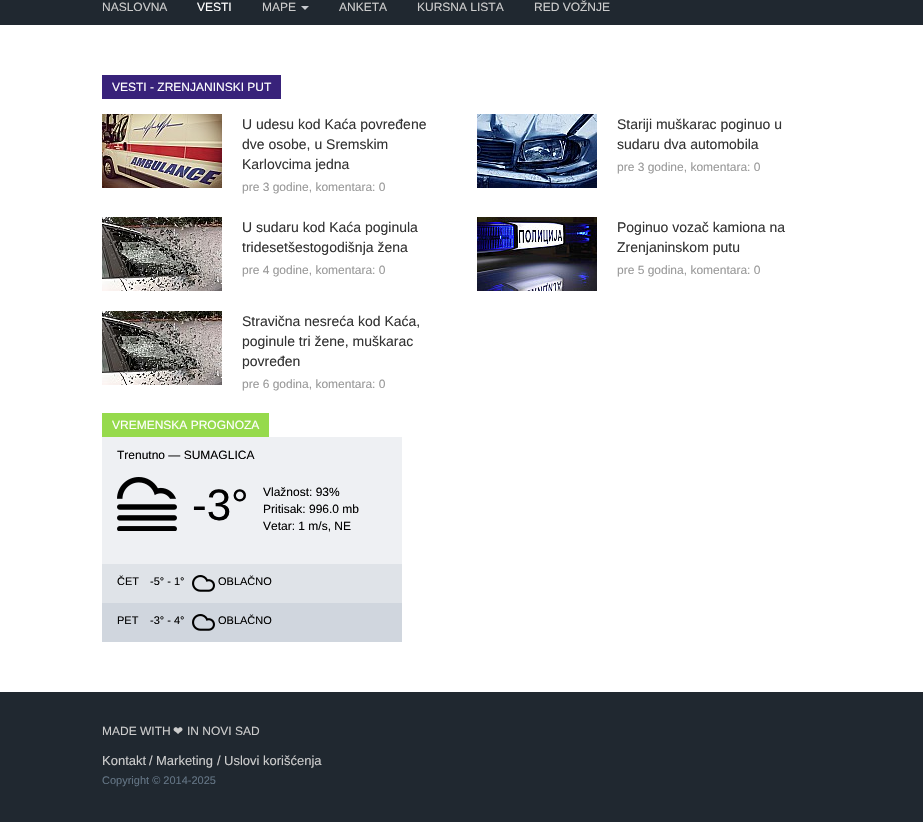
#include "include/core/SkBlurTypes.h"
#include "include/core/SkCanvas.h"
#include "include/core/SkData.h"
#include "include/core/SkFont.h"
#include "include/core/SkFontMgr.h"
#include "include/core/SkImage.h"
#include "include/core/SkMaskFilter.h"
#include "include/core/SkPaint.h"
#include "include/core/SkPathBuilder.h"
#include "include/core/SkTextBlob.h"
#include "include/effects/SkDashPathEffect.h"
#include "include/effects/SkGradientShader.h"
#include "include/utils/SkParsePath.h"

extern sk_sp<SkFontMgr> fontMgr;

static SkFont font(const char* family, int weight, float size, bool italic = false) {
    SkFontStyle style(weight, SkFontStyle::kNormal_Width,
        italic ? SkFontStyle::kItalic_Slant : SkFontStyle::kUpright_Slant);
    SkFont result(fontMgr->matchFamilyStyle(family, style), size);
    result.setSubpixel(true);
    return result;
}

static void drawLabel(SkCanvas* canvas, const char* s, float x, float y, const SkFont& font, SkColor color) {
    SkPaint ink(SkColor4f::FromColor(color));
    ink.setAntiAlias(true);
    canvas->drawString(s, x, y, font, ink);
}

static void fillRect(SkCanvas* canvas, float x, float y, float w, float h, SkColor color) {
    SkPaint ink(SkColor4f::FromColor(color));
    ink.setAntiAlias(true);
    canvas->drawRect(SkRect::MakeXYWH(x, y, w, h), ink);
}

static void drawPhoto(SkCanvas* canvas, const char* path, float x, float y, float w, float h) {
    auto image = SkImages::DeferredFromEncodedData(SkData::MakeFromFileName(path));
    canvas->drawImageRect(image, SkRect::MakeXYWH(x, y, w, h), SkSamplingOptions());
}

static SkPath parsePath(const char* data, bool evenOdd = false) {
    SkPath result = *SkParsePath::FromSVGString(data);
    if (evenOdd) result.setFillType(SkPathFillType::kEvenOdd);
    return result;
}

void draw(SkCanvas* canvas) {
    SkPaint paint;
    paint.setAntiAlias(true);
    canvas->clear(0xFFFFFFFF);
    fillRect(canvas, 0, 0, 923, 25, 0xFF202830);
    SkFont font1 = font("Liberation Sans", 400, 12);
    drawLabel(canvas, "NASLOVNA", 102, 11, font1, 0xFFCCCCCC);
    drawLabel(canvas, "VESTI", 197, 11, font1, 0xFFFFFFFF);
    drawLabel(canvas, "MAPE", 262, 11, font1, 0xFFCCCCCC);
    paint.setColor(0xFFC8CBD0);
    canvas->drawPath(parsePath("M301 6H309L305 10Z"), paint);
    drawLabel(canvas, "ANKETA", 339, 11, font1, 0xFFCCCCCC);
    drawLabel(canvas, "KURSNA LISTA", 417, 11, font1, 0xFFCCCCCC);
    drawLabel(canvas, "RED VOŽNJE", 534, 11, font1, 0xFFCCCCCC);
    fillRect(canvas, 102, 75, 179, 24, 0xFF38227A);
    drawLabel(canvas, "VESTI - ZRENJANINSKI PUT", 112, 91, font1, 0xFFFFFFFF);
    drawPhoto(canvas, "assets/img1.png", 102, 114, 120, 74);
    SkFont font2 = font("Liberation Sans", 400, 14);
    drawLabel(canvas, "U udesu kod Kaća povređene", 242, 129, font2, 0xFF333333);
    drawLabel(canvas, "dve osobe, u Sremskim", 242, 149, font2, 0xFF333333);
    drawLabel(canvas, "Karlovcima jedna", 242, 169, font2, 0xFF333333);
    drawLabel(canvas, "pre 3 godine, komentara: 0", 242, 191, font1, 0xFF999999);
    drawPhoto(canvas, "assets/img2.png", 477, 114, 120, 74);
    drawLabel(canvas, "Stariji muškarac poginuo u", 617, 129, font2, 0xFF333333);
    drawLabel(canvas, "sudaru dva automobila", 617, 149, font2, 0xFF333333);
    drawLabel(canvas, "pre 3 godine, komentara: 0", 617, 171, font1, 0xFF999999);
    drawPhoto(canvas, "assets/img3.png", 102, 217, 120, 74);
    drawLabel(canvas, "U sudaru kod Kaća poginula", 242, 232, font2, 0xFF333333);
    drawLabel(canvas, "tridesetšestogodišnja žena", 242, 252, font2, 0xFF333333);
    drawLabel(canvas, "pre 4 godine, komentara: 0", 242, 274, font1, 0xFF999999);
    drawPhoto(canvas, "assets/img4.png", 477, 217, 120, 74);
    drawLabel(canvas, "Poginuo vozač kamiona na", 617, 232, font2, 0xFF333333);
    drawLabel(canvas, "Zrenjaninskom putu", 617, 252, font2, 0xFF333333);
    drawLabel(canvas, "pre 5 godina, komentara: 0", 617, 274, font1, 0xFF999999);
    drawPhoto(canvas, "assets/img5.png", 102, 311, 120, 74);
    drawLabel(canvas, "Stravična nesreća kod Kaća,", 242, 326, font2, 0xFF333333);
    drawLabel(canvas, "poginule tri žene, muškarac", 242, 346, font2, 0xFF333333);
    drawLabel(canvas, "povređen", 242, 366, font2, 0xFF333333);
    drawLabel(canvas, "pre 6 godina, komentara: 0", 242, 388, font1, 0xFF999999);
    fillRect(canvas, 102, 413, 167, 24, 0xFF96DA4C);
    drawLabel(canvas, "VREMENSKA PROGNOZA", 112, 429, font1, 0xFFFFFFFF);
    fillRect(canvas, 102, 437, 300, 127, 0xFFEEF0F3);
    drawLabel(canvas, "Trenutno — SUMAGLICA", 117, 459, font1, 0xFF000000);
    drawPhoto(canvas, "assets/img6.png", 117, 477, 60, 54);
    SkFont font3 = font("Liberation Sans", 400, 44);
    drawLabel(canvas, "-3°", 192, 520, font3, 0xFF000000);
    drawLabel(canvas, "Vlažnost: 93%", 263, 496, font1, 0xFF000000);
    drawLabel(canvas, "Pritisak: 996.0 mb", 263, 513, font1, 0xFF000000);
    drawLabel(canvas, "Vetar: 1 m/s, NE", 263, 530, font1, 0xFF000000);
    fillRect(canvas, 102, 564, 300, 39, 0xFFDFE3E8);
    SkFont font4 = font("Liberation Sans", 400, 11);
    drawLabel(canvas, "ČET", 117, 585, font4, 0xFF000000);
    drawLabel(canvas, "-5° - 1°", 150, 585, font4, 0xFF000000);
    drawPhoto(canvas, "assets/img7.png", 192, 575, 23, 17);
    drawLabel(canvas, "OBLAČNO", 218, 585, font4, 0xFF000000);
    fillRect(canvas, 102, 603, 300, 39, 0xFFD0D6DE);
    drawLabel(canvas, "PET", 117, 624, font4, 0xFF000000);
    drawLabel(canvas, "-3° - 4°", 150, 624, font4, 0xFF000000);
    drawPhoto(canvas, "assets/img8.png", 192, 614, 23, 17);
    drawLabel(canvas, "OBLAČNO", 218, 624, font4, 0xFF000000);
    fillRect(canvas, 0, 692, 923, 130, 0xFF202830);
    drawLabel(canvas, "MADE WITH", 102, 735, font1, 0xFFCCCCCC);
    SkFont font5 = font("DejaVu Sans", 400, 12);
    drawLabel(canvas, "❤", 173, 735, font5, 0xFFCCCCCC);
    drawLabel(canvas, "IN NOVI SAD", 187, 735, font1, 0xFFCCCCCC);
    SkFont font6 = font("Liberation Sans", 400, 13);
    drawLabel(canvas, "Kontakt", 102, 765, font6, 0xFFCCCCCC);
    drawLabel(canvas, "/", 149, 765, font6, 0xFFCCCCCC);
    drawLabel(canvas, "Marketing", 156, 765, font6, 0xFFCCCCCC);
    drawLabel(canvas, "/", 217, 765, font6, 0xFFCCCCCC);
    drawLabel(canvas, "Uslovi korišćenja", 224, 765, font6, 0xFFCCCCCC);
    drawLabel(canvas, "Copyright © 2014-2025", 102, 784, font4, 0xFF637484);
}
